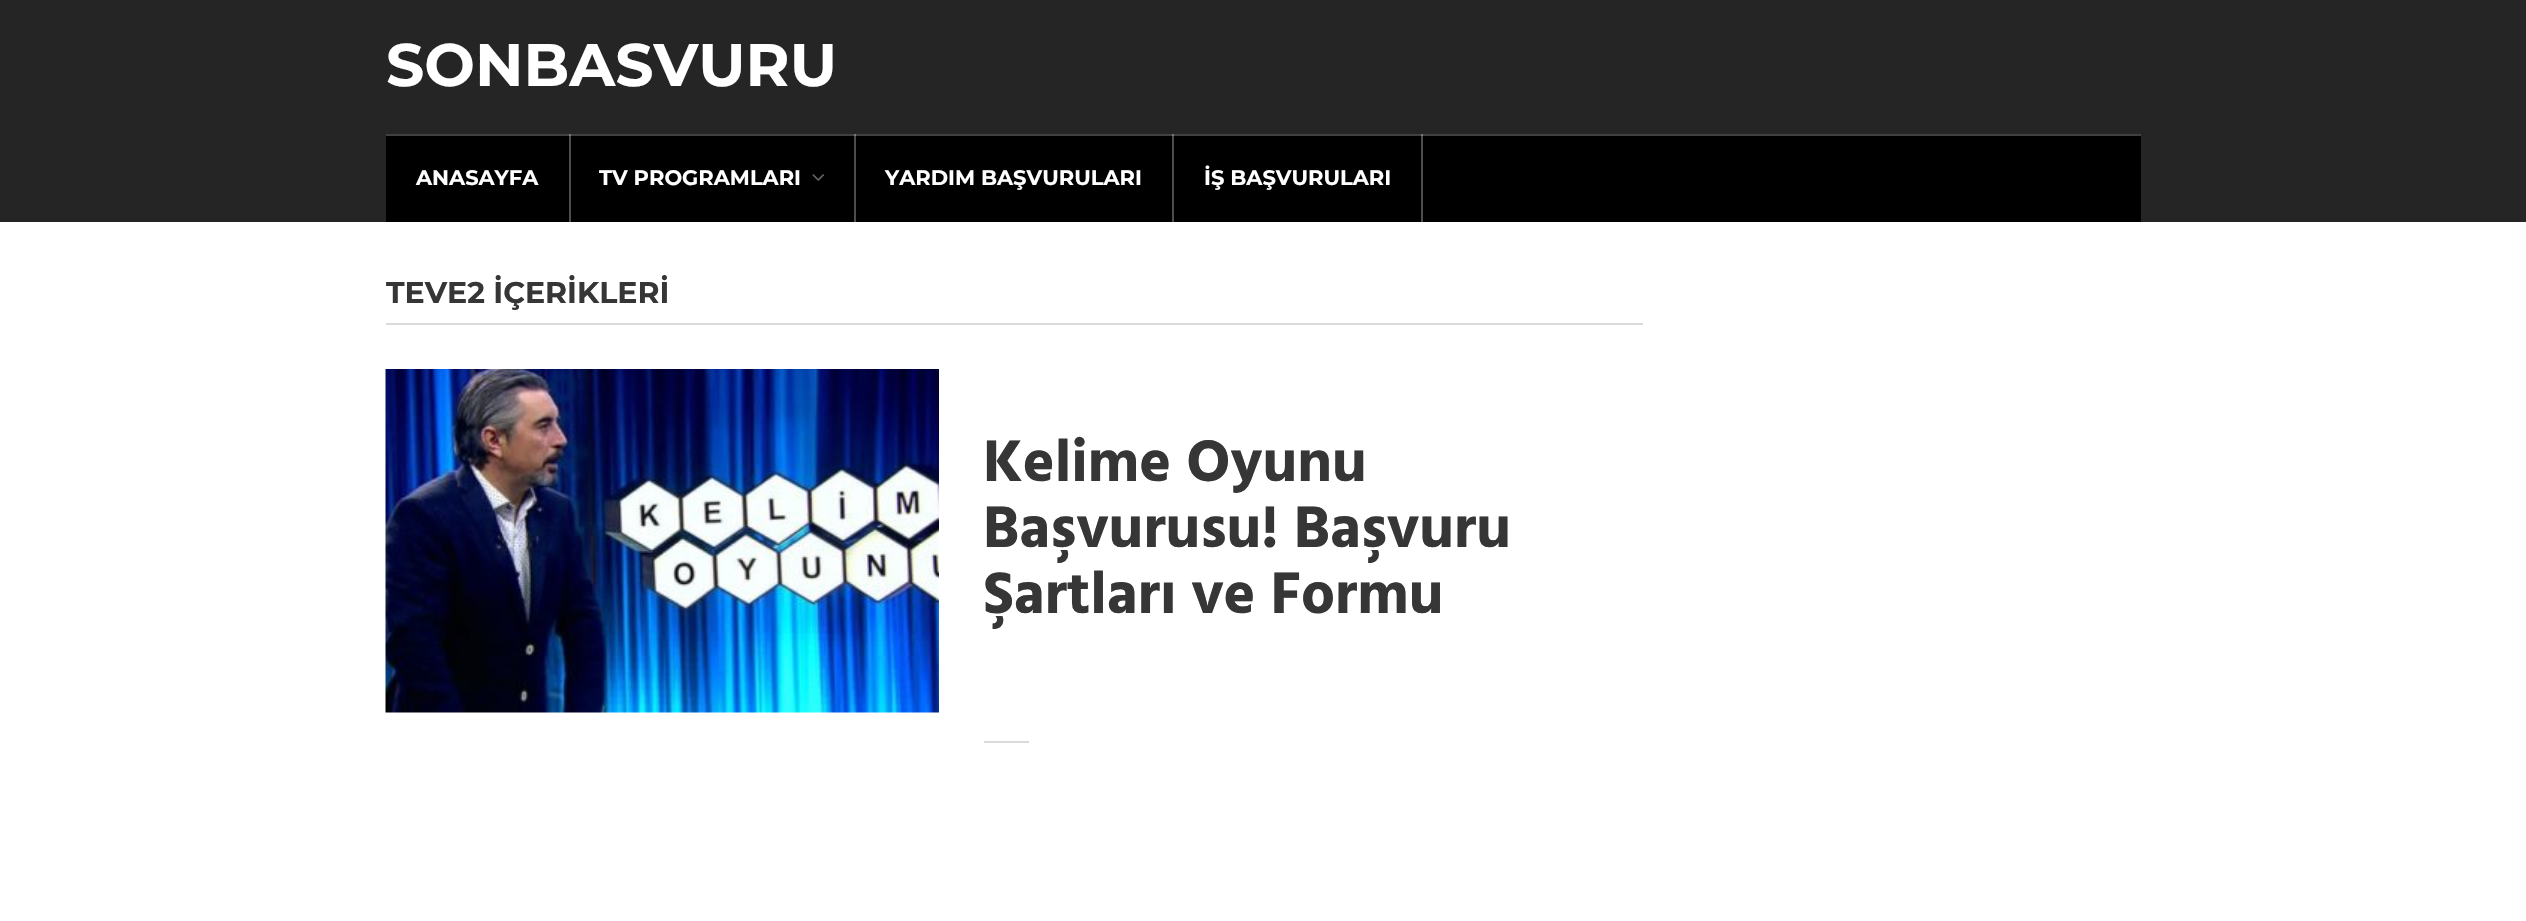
#include "include/core/SkBlurTypes.h"
#include "include/core/SkCanvas.h"
#include "include/core/SkData.h"
#include "include/core/SkFont.h"
#include "include/core/SkFontMgr.h"
#include "include/core/SkImage.h"
#include "include/core/SkMaskFilter.h"
#include "include/core/SkPaint.h"
#include "include/core/SkPathBuilder.h"
#include "include/core/SkTextBlob.h"
#include "include/effects/SkDashPathEffect.h"
#include "include/effects/SkGradientShader.h"
#include "include/utils/SkParsePath.h"

extern sk_sp<SkFontMgr> fontMgr;

static SkFont font(const char* family, int weight, float size, bool italic = false) {
    SkFontStyle style(weight, SkFontStyle::kNormal_Width,
        italic ? SkFontStyle::kItalic_Slant : SkFontStyle::kUpright_Slant);
    SkFont result(fontMgr->matchFamilyStyle(family, style), size);
    result.setSubpixel(true);
    return result;
}

static void drawLabel(SkCanvas* canvas, const char* s, float x, float y, const SkFont& font, SkColor color) {
    SkPaint ink(SkColor4f::FromColor(color));
    ink.setAntiAlias(true);
    canvas->drawString(s, x, y, font, ink);
}

static void fillRect(SkCanvas* canvas, float x, float y, float w, float h, SkColor color) {
    SkPaint ink(SkColor4f::FromColor(color));
    ink.setAntiAlias(true);
    canvas->drawRect(SkRect::MakeXYWH(x, y, w, h), ink);
}

static void drawPhoto(SkCanvas* canvas, const char* path, float x, float y, float w, float h) {
    auto image = SkImages::DeferredFromEncodedData(SkData::MakeFromFileName(path));
    canvas->drawImageRect(image, SkRect::MakeXYWH(x, y, w, h), SkSamplingOptions());
}

static SkPath parsePath(const char* data, bool evenOdd = false) {
    SkPath result = *SkParsePath::FromSVGString(data);
    if (evenOdd) result.setFillType(SkPathFillType::kEvenOdd);
    return result;
}

void draw(SkCanvas* canvas) {
    SkPaint paint;
    paint.setAntiAlias(true);
    canvas->clear(0xFFFFFFFF);
    fillRect(canvas, 0, 0, 2526, 222, 0xFF252525);
    SkFont font1 = font("Montserrat", 700, 60);
    drawLabel(canvas, "SONBASVURU", 386, 86, font1, 0xFFFFFFFF);
    paint.setColor(0x33FFFFFF);
    canvas->drawPath(parsePath("M386 222V224H2141V135H2140V222Z"), paint);
    fillRect(canvas, 386, 136, 1755, 86, 0xFF000000);
    fillRect(canvas, 1421, 134, 2, 88, 0xFF4D4D4D);
    fillRect(canvas, 1172, 134, 2, 88, 0xFF4D4D4D);
    fillRect(canvas, 854, 134, 2, 88, 0xFF4D4D4D);
    fillRect(canvas, 569, 134, 2, 88, 0xFF4D4D4D);
    fillRect(canvas, 386, 134, 1755, 2, 0xFF404040);
    fillRect(canvas, 1421, 134, 2, 2, 0xFF797979);
    fillRect(canvas, 1172, 134, 2, 2, 0xFF797979);
    fillRect(canvas, 854, 134, 2, 2, 0xFF797979);
    fillRect(canvas, 569, 134, 2, 2, 0xFF797979);
    SkFont font2 = font("Montserrat", 700, 21);
    drawLabel(canvas, "ANASAYFA", 416, 185, font2, 0xFFFFFFFF);
    drawLabel(canvas, "TV PROGRAMLARI", 599, 185, font2, 0xFFFFFFFF);
    drawPhoto(canvas, "assets/img1.png", 812, 174, 12, 7);
    drawLabel(canvas, "YARDIM BAŞVURULARI", 885, 185, font2, 0xFFFFFFFF);
    drawLabel(canvas, "İŞ BAŞVURULARI", 1204, 185, font2, 0xFFFFFFFF);
    fillRect(canvas, 386, 323, 1257, 2, 0xFFDADADA);
    SkFont font3 = font("Montserrat", 700, 30);
    drawLabel(canvas, "TEVE2 İÇERİKLERİ", 386, 303, font3, 0xFF363636);
    drawPhoto(canvas, "assets/img2.png", 385, 369, 554, 344);
    SkFont font4 = font("Hind", 700, 60);
    drawLabel(canvas, "Kelime Oyunu", 983, 481, font4, 0xFF363636);
    drawLabel(canvas, "Başvurusu! Başvuru", 983, 547, font4, 0xFF363636);
    drawLabel(canvas, "Şartları ve Formu", 983, 613, font4, 0xFF363636);
    fillRect(canvas, 984, 741, 45, 2, 0xFFDADADA);
}
